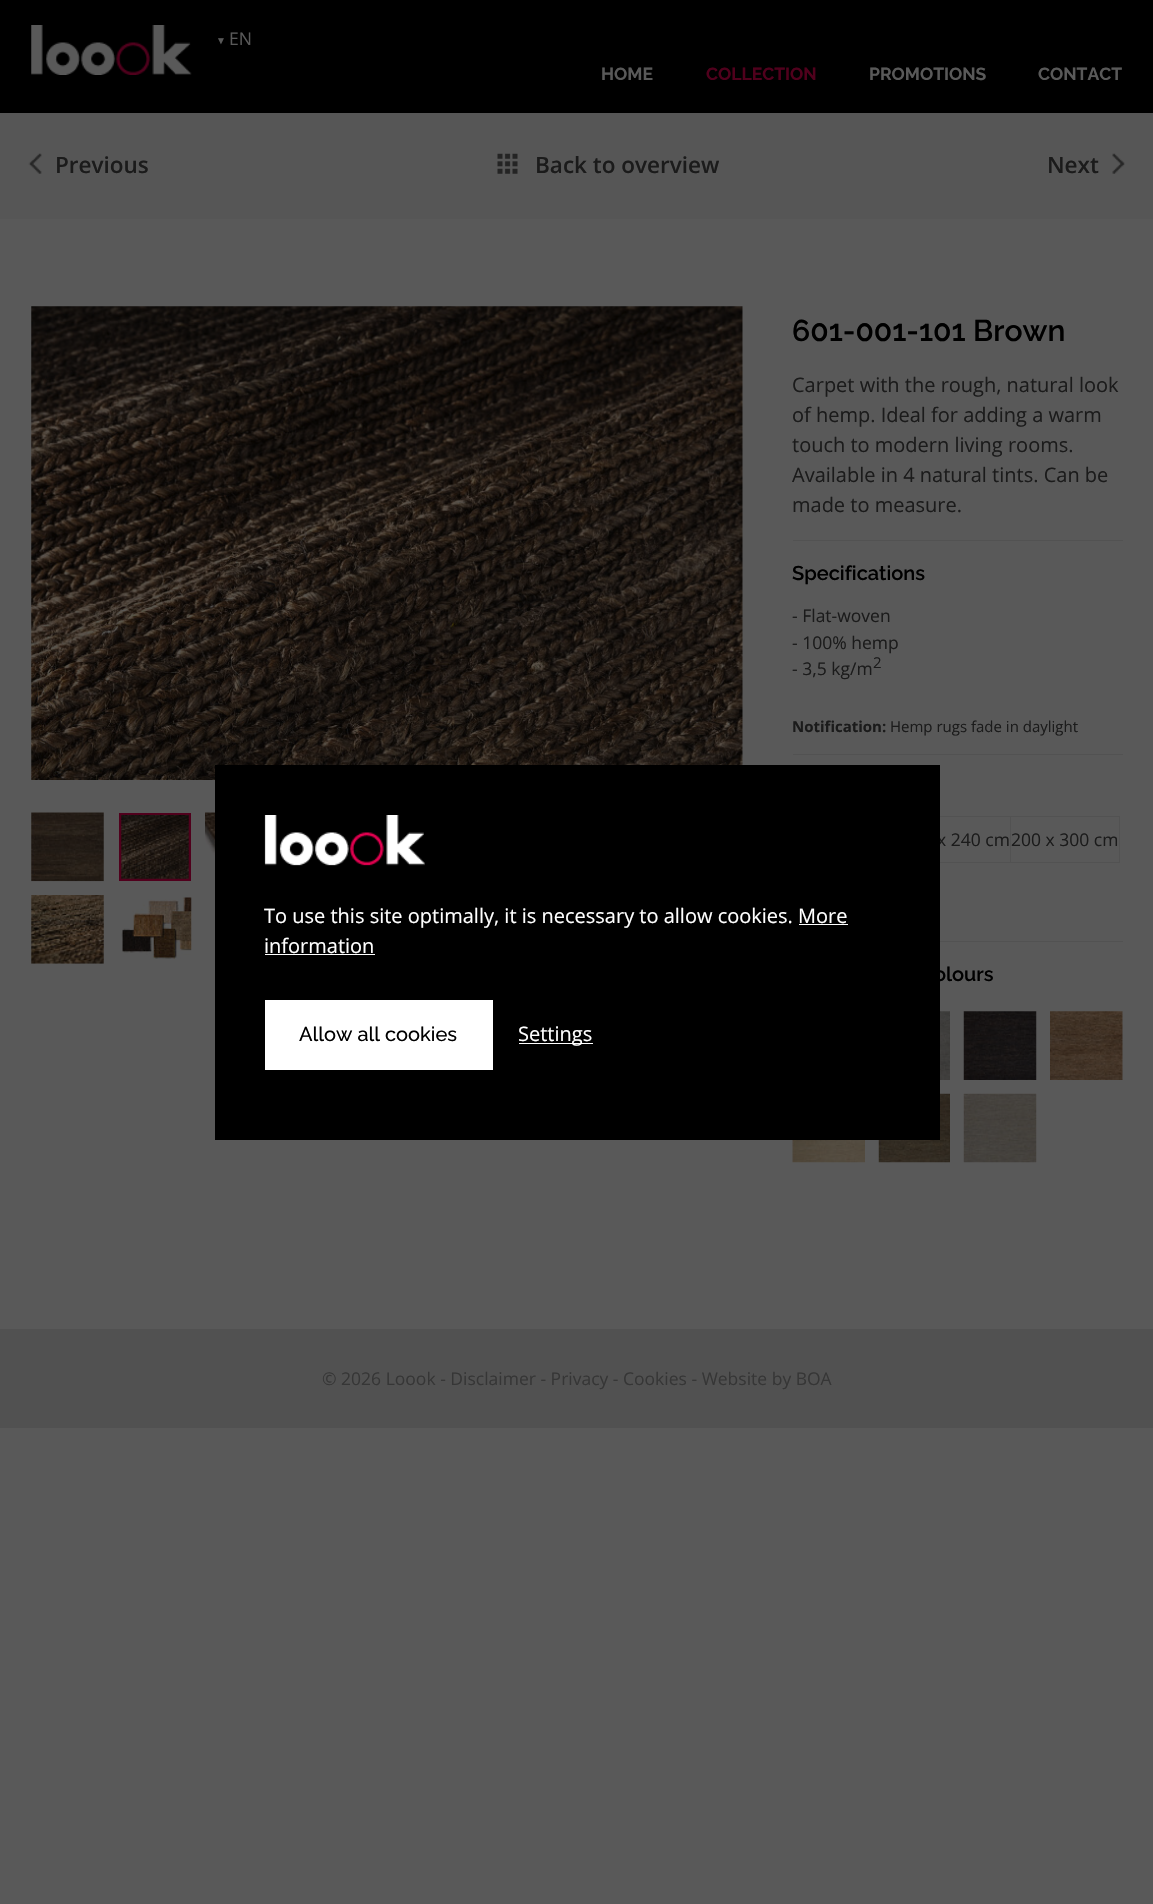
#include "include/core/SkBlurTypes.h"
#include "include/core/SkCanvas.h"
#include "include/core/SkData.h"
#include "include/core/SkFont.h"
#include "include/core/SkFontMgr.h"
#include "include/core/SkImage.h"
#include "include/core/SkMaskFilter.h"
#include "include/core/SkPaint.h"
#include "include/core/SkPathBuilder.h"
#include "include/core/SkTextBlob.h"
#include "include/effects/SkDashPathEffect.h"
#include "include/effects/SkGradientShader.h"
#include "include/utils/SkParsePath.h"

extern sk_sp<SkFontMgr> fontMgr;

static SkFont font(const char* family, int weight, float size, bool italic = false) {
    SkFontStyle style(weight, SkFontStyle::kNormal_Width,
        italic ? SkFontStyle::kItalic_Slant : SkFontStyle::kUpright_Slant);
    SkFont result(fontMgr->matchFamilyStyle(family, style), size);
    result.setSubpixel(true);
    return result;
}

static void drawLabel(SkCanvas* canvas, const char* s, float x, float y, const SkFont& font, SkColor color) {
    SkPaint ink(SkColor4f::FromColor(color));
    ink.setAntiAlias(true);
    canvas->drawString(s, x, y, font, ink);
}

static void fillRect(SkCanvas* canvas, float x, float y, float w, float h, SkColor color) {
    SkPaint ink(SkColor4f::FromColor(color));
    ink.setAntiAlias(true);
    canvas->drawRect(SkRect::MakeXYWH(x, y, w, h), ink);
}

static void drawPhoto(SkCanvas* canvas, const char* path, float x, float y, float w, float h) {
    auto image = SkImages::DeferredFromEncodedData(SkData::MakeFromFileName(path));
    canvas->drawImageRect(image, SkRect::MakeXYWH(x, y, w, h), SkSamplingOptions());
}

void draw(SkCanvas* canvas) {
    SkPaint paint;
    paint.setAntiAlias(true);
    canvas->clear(0xFF595959);
    fillRect(canvas, 0, 0, 1153, 113, 0xFF000000);
    drawPhoto(canvas, "assets/img1.png", 31, 25, 161, 50);
    SkFont font1 = font("Liberation Sans", 400, 10);
    drawLabel(canvas, "▼", 216, 44, font1, 0xFF595959);
    SkFont font2 = font("Open Sans", 400, 17.5f);
    drawLabel(canvas, "EN", 229, 45, font2, 0xFF595959);
    SkFont font3 = font("Raleway", 700, 17.5f);
    drawLabel(canvas, "HOME", 601, 80, font3, 0xFF595959);
    drawLabel(canvas, "COLLECTION", 706, 80, font3, 0xFF50001C);
    drawLabel(canvas, "PROMOTIONS", 869, 80, font3, 0xFF595959);
    drawLabel(canvas, "CONTACT", 1038, 80, font3, 0xFF595959);
    fillRect(canvas, 0, 113, 1153, 106, 0xFF565656);
    drawPhoto(canvas, "assets/img2.png", 28, 153, 14, 21);
    SkFont font4 = font("Open Sans", 600, 22.5f);
    drawLabel(canvas, "Previous", 55, 173, font4, 0xFF1B1B1B);
    drawPhoto(canvas, "assets/img3.png", 497, 153, 21, 21);
    drawLabel(canvas, "Back to overview", 535, 173, font4, 0xFF1B1B1B);
    drawLabel(canvas, "Next", 1047, 173, font4, 0xFF1B1B1B);
    drawPhoto(canvas, "assets/img4.png", 1112, 153, 13, 21);
    drawPhoto(canvas, "assets/img6.png", 31, 306, 712, 474);
    paint.setStroke(true);
    paint.setStrokeWidth(1);
    paint.setColor(0xFF525252);
    canvas->drawRect(SkRect::MakeXYWH(901.5f, 816.5f, 109, 46), paint);
    drawLabel(canvas, "x 240 cm", 937, 846, font2, 0xFF1B1B1B);
    drawPhoto(canvas, "assets/img16.png", 878, 1093, 72, 70);
    fillRect(canvas, 215, 765, 725, 375, 0xFF000000);
    drawPhoto(canvas, "assets/img5.png", 264, 815, 161, 51);
    SkFont font5 = font("Open Sans", 400, 20);
    drawLabel(canvas, "To use this site optimally, it is necessary to allow cookies. More", 264, 923, font5, 0xFFFFFFFF);
    drawLabel(canvas, "information", 264, 953, font5, 0xFFFFFFFF);
    fillRect(canvas, 799, 924, 49, 1, 0xFFFFFFFF);
    fillRect(canvas, 265, 954, 110, 1, 0xFFFFFFFF);
    fillRect(canvas, 265, 1000, 228, 70, 0xFFFFFFFF);
    SkFont font6 = font("Raleway", 500, 20);
    drawLabel(canvas, "Allow all cookies", 299, 1041, font6, 0xFF000000);
    fillRect(canvas, 519, 1043, 74, 1, 0xFFFFFFFF);
    drawLabel(canvas, "Settings", 518, 1041, font5, 0xFFFFFFFF);
    drawPhoto(canvas, "assets/img7.png", 31, 812, 73, 70);
    paint.setStrokeWidth(3);
    paint.setColor(0xFF50001C);
    canvas->drawRect(SkRect::MakeXYWH(120.5f, 814.5f, 69, 65), paint);
    drawPhoto(canvas, "assets/img8.png", 121, 815, 68, 64);
    drawPhoto(canvas, "assets/img9.png", 205, 812, 10, 68);
    drawPhoto(canvas, "assets/img10.png", 31, 895, 73, 69);
    drawPhoto(canvas, "assets/img11.png", 121, 895, 71, 64);
    SkFont font7 = font("Raleway", 600, 30);
    drawLabel(canvas, "601-001-101 Brown", 792, 341, font7, 0xFF000000);
    drawLabel(canvas, "Carpet with the rough, natural look", 792, 392, font5, 0xFF1B1B1B);
    drawLabel(canvas, "of hemp. Ideal for adding a warm", 792, 422, font5, 0xFF1B1B1B);
    drawLabel(canvas, "touch to modern living rooms.", 792, 452, font5, 0xFF1B1B1B);
    drawLabel(canvas, "Available in 4 natural tints. Can be", 792, 482, font5, 0xFF1B1B1B);
    drawLabel(canvas, "made to measure.", 792, 512, font5, 0xFF1B1B1B);
    fillRect(canvas, 793, 540, 330, 1, 0xFF525252);
    SkFont font8 = font("Raleway", 600, 20);
    drawLabel(canvas, "Specifications", 792, 580, font8, 0xFF000000);
    drawLabel(canvas, "- Flat-woven", 792, 622, font2, 0xFF1B1B1B);
    drawLabel(canvas, "- 100% hemp", 792, 649, font2, 0xFF1B1B1B);
    drawLabel(canvas, "- 3,5 kg/m", 792, 675, font2, 0xFF1B1B1B);
    SkFont font9 = font("Open Sans", 400, 15);
    drawLabel(canvas, "2", 873, 668, font9, 0xFF1B1B1B);
    SkFont font10 = font("Open Sans", 700, 15);
    drawLabel(canvas, "Notification:", 792, 732, font10, 0xFF1B1B1B);
    drawLabel(canvas, "Hemp rugs fade in daylight", 890, 732, font9, 0xFF1B1B1B);
    fillRect(canvas, 793, 754, 330, 1, 0xFF525252);
    paint.setStrokeWidth(1);
    paint.setColor(0xFF525252);
    canvas->drawRect(SkRect::MakeXYWH(1010.5f, 816.5f, 109, 46), paint);
    drawLabel(canvas, "200 x 300 cm", 1011, 846, font2, 0xFF1B1B1B);
    fillRect(canvas, 940, 941, 183, 1, 0xFF525252);
    drawLabel(canvas, "olours", 934, 981, font8, 0xFF000000);
    drawPhoto(canvas, "assets/img12.png", 940, 1011, 10, 69);
    drawPhoto(canvas, "assets/img13.png", 963, 1011, 74, 69);
    drawPhoto(canvas, "assets/img14.png", 1050, 1011, 73, 69);
    drawPhoto(canvas, "assets/img15.png", 792, 1140, 73, 23);
    drawPhoto(canvas, "assets/img17.png", 963, 1093, 74, 70);
    fillRect(canvas, 0, 1329, 1153, 99, 0xFF515151);
    drawLabel(canvas, "© 2026 Loook - Disclaimer - Privacy - Cookies - Website by BOA", 322, 1385, font2, 0xFF363636);
}
